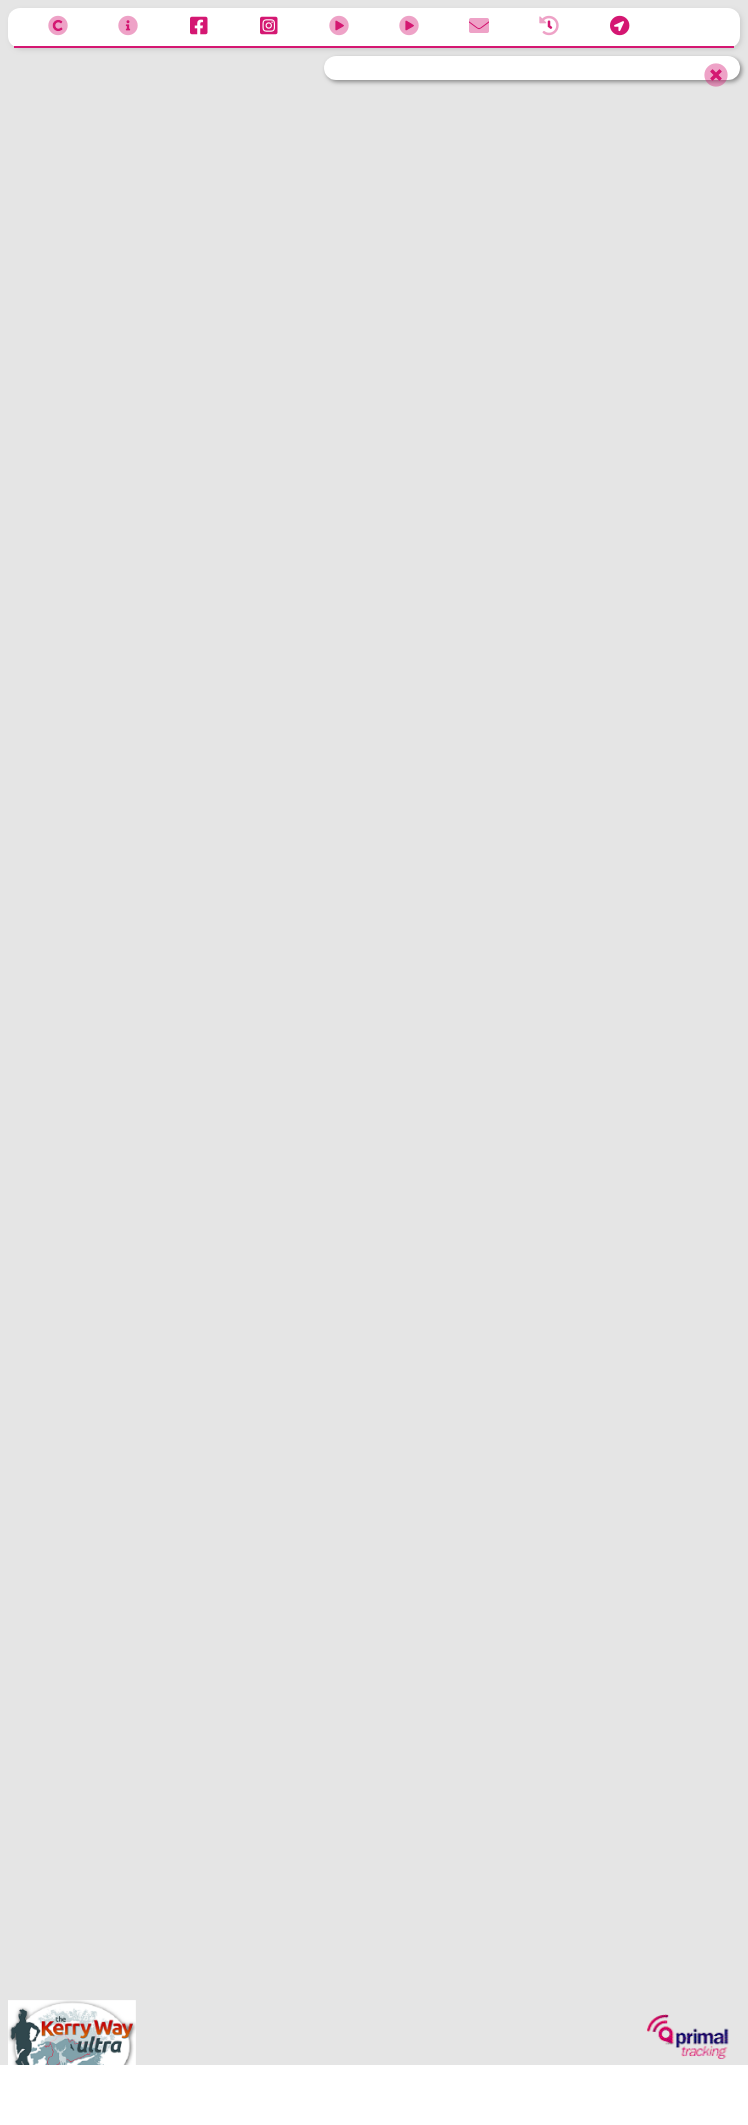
#include "include/core/SkBlurTypes.h"
#include "include/core/SkCanvas.h"
#include "include/core/SkData.h"
#include "include/core/SkFont.h"
#include "include/core/SkFontMgr.h"
#include "include/core/SkImage.h"
#include "include/core/SkMaskFilter.h"
#include "include/core/SkPaint.h"
#include "include/core/SkPathBuilder.h"
#include "include/core/SkTextBlob.h"
#include "include/effects/SkDashPathEffect.h"
#include "include/effects/SkGradientShader.h"
#include "include/utils/SkParsePath.h"

extern sk_sp<SkFontMgr> fontMgr;

static void fillRect(SkCanvas* canvas, float x, float y, float w, float h, SkColor color) {
    SkPaint ink(SkColor4f::FromColor(color));
    ink.setAntiAlias(true);
    canvas->drawRect(SkRect::MakeXYWH(x, y, w, h), ink);
}

static void fillRRect(SkCanvas* canvas, float x, float y, float w, float h, float radius, SkColor color) {
    SkPaint ink(SkColor4f::FromColor(color));
    ink.setAntiAlias(true);
    canvas->drawRoundRect(SkRect::MakeXYWH(x, y, w, h), radius, radius, ink);
}

static void drawPhoto(SkCanvas* canvas, const char* path, float x, float y, float w, float h) {
    auto image = SkImages::DeferredFromEncodedData(SkData::MakeFromFileName(path));
    canvas->drawImageRect(image, SkRect::MakeXYWH(x, y, w, h), SkSamplingOptions());
}

void draw(SkCanvas* canvas) {
    SkPaint paint;
    paint.setAntiAlias(true);
    canvas->clear(0xFFE5E5E5);
    paint.setColor(0x1A000000);
    paint.setMaskFilter(SkMaskFilter::MakeBlur(kNormal_SkBlurStyle, 2));
    canvas->drawRoundRect(SkRect::MakeXYWH(10, 10, 732, 40), 12, 12, paint);
    paint.setMaskFilter(nullptr);
    fillRRect(canvas, 8, 8, 732, 40, 12, 0xFFFFFFFF);
    fillRect(canvas, 14, 46, 720, 2, 0xFFD41772);
    drawPhoto(canvas, "assets/img2.png", 52, 19, 11, 13);
    drawPhoto(canvas, "assets/img1.png", 48, 15, 20, 21);
    drawPhoto(canvas, "assets/img4.png", 125, 20, 6, 11);
    drawPhoto(canvas, "assets/img3.png", 118, 15, 20, 21);
    drawPhoto(canvas, "assets/img5.png", 190, 16, 18, 19);
    drawPhoto(canvas, "assets/img6.png", 260, 16, 18, 19);
    drawPhoto(canvas, "assets/img8.png", 335, 20, 9, 11);
    drawPhoto(canvas, "assets/img7.png", 329, 15, 20, 21);
    drawPhoto(canvas, "assets/img8.png", 405, 20, 9, 11);
    drawPhoto(canvas, "assets/img7.png", 399, 15, 20, 21);
    drawPhoto(canvas, "assets/img10.png", 469, 21, 20, 9);
    drawPhoto(canvas, "assets/img9.png", 469, 18, 20, 15);
    drawPhoto(canvas, "assets/img12.png", 547, 20, 6, 9);
    drawPhoto(canvas, "assets/img11.png", 539, 15, 20, 21);
    drawPhoto(canvas, "assets/img13.png", 610, 15, 20, 21);
    paint.setColor(0x66000000);
    paint.setMaskFilter(SkMaskFilter::MakeBlur(kNormal_SkBlurStyle, 2));
    canvas->drawRoundRect(SkRect::MakeXYWH(326, 58, 416, 24), 12, 12, paint);
    paint.setMaskFilter(nullptr);
    fillRRect(canvas, 324, 56, 416, 24, 12, 0xFFFFFFFF);
    drawPhoto(canvas, "assets/img15.png", 710, 69, 12, 12);
    drawPhoto(canvas, "assets/img14.png", 704, 63, 24, 24);
    drawPhoto(canvas, "assets/img16.png", 8, 2000, 128, 65);
    drawPhoto(canvas, "assets/img17.png", 647, 2014, 82, 45);
    fillRect(canvas, 0, 2065, 748, 60, 0xFFFFFFFF);
}
